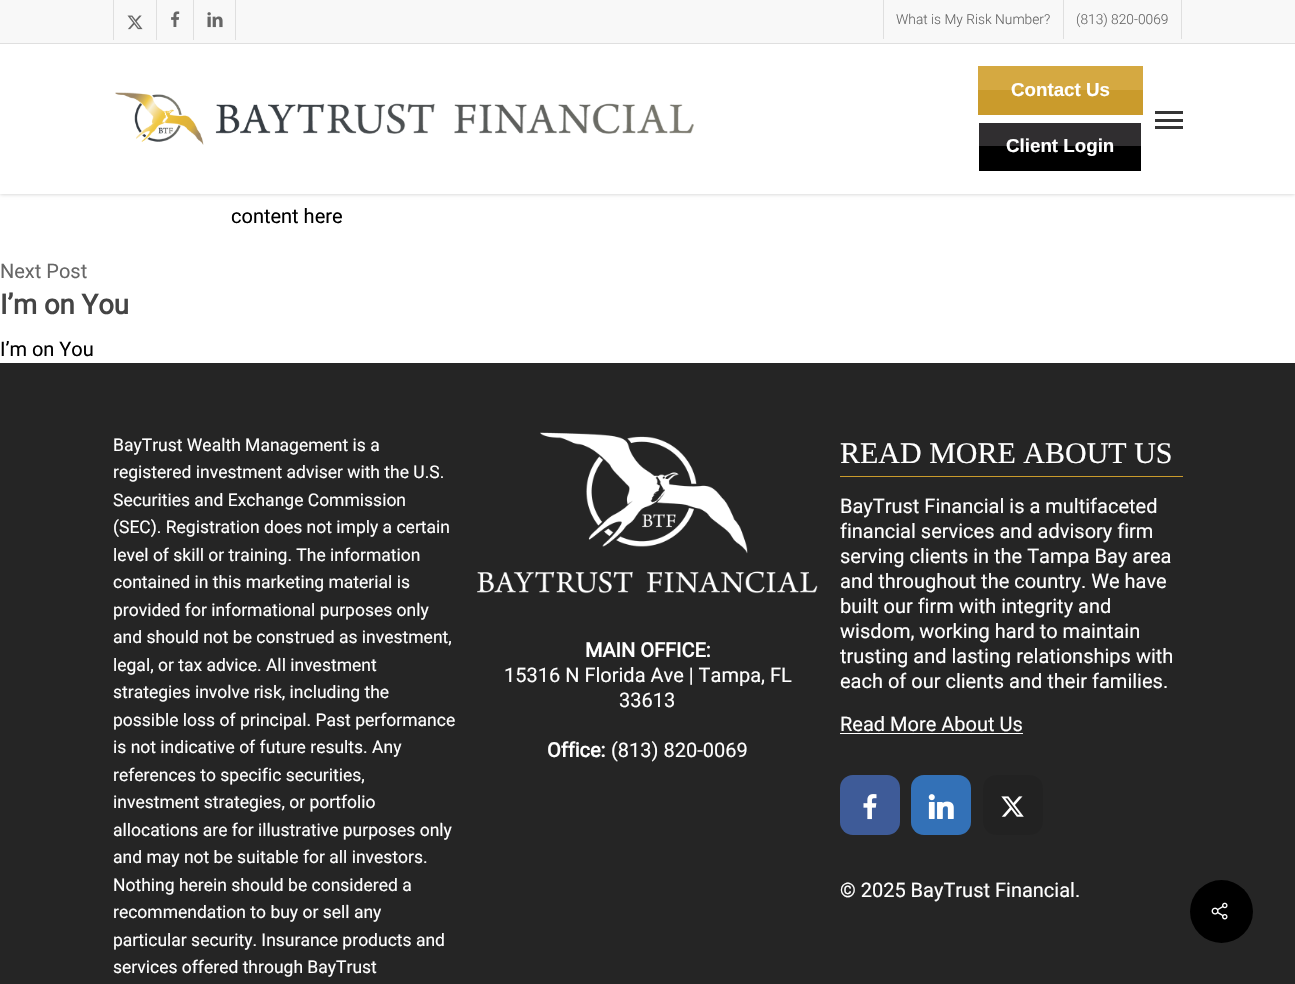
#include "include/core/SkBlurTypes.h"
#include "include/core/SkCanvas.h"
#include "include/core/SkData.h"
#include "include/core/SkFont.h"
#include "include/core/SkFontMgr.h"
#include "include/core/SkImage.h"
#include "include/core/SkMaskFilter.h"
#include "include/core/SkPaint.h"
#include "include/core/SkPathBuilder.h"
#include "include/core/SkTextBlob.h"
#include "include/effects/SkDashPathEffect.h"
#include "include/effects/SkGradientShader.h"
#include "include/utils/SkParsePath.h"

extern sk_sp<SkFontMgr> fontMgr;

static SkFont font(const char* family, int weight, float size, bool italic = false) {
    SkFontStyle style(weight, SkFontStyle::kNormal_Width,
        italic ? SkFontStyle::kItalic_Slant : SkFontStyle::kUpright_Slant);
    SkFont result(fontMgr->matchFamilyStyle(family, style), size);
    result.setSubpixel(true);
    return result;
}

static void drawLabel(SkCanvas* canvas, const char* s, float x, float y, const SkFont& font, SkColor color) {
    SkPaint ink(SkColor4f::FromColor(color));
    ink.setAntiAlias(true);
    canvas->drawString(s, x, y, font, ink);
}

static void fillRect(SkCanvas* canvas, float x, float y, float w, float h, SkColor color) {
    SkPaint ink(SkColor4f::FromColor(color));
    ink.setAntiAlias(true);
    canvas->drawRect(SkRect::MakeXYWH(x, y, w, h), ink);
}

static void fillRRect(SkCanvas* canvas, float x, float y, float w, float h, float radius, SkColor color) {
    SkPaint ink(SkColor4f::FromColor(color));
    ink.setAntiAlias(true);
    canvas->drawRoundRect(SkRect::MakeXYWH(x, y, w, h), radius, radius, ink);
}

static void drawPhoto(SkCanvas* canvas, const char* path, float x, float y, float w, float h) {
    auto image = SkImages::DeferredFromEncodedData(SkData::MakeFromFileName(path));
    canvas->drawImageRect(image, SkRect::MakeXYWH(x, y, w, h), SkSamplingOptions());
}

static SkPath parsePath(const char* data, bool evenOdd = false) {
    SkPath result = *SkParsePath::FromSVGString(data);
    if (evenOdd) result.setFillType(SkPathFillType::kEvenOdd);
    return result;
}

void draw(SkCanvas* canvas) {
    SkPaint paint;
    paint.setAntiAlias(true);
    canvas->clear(0xFFFFFFFF);
    paint.setColor(0x38000000);
    paint.setMaskFilter(SkMaskFilter::MakeBlur(kNormal_SkBlurStyle, 2));
    canvas->drawRect(SkRect::MakeXYWH(0, 0, 1295, 194), paint);
    paint.setMaskFilter(nullptr);
    fillRect(canvas, 0, 44, 1295, 150, 0xFFFFFFFF);
    fillRect(canvas, 0, 0, 1295, 43, 0xFFF8F8F8);
    fillRect(canvas, 0, 43, 1295, 1, 0xFFDFDFDF);
    fillRect(canvas, 113, 0, 1, 40, 0xFFDFDFDF);
    drawPhoto(canvas, "assets/img1.png", 127, 15, 16, 15);
    fillRect(canvas, 156, 0, 1, 40, 0xFFDFDFDF);
    drawPhoto(canvas, "assets/img2.png", 171, 11, 9, 16);
    fillRect(canvas, 235, 0, 1, 40, 0xFFDFDFDF);
    fillRect(canvas, 193, 0, 1, 40, 0xFFDFDFDF);
    drawPhoto(canvas, "assets/img3.png", 207, 12, 16, 16);
    fillRect(canvas, 883, 0, 1, 39, 0xFFDFDFDF);
    SkFont font1 = font("Roboto", 300, 13.75f);
    drawLabel(canvas, "What is My Risk Number?", 896, 24, font1, 0xFF676767);
    fillRect(canvas, 1181, 0, 1, 39, 0xFFDFDFDF);
    fillRect(canvas, 1063, 0, 1, 39, 0xFFDFDFDF);
    drawLabel(canvas, "(813) 820-0069", 1076, 24, font1, 0xFF676767);
    drawPhoto(canvas, "assets/img4.png", 115, 92, 579, 53);
    fillRect(canvas, 978, 90, 165, 25, 0xFFCA9B2C);
    canvas->save();
    canvas->clipRect(SkRect::MakeXYWH(978, 66, 165, 49));
    paint.setColor(0xFFD5A941);
    canvas->drawPath(parsePath("M854-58H1266V239H854ZM978 90H1142C1153 90 1161 98 1161 109V158C1161 168 1153 176 1142 176H978C967 176 959 168 959 158V109C959 98 967 90 978 90Z", true), paint);
    canvas->restore();
    SkFont font2 = font("Liberation Sans", 700, 18.75f);
    drawLabel(canvas, "Contact Us", 1011, 96, font2, 0xFFFFFFFF);
    fillRect(canvas, 979, 146, 162, 25, 0xFF000000);
    canvas->save();
    canvas->clipRect(SkRect::MakeXYWH(979, 123, 162, 48));
    paint.setColor(0xFF302E30);
    canvas->drawPath(parsePath("M855-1H1265V295H855ZM979 146H1141C1152 146 1160 155 1160 165V214C1160 224 1152 232 1141 232H979C968 232 960 224 960 214V165C960 155 968 146 979 146Z", true), paint);
    canvas->restore();
    drawLabel(canvas, "Client Login", 1006, 152, font2, 0xFFFFFFFF);
    fillRect(canvas, 1155, 111, 28, 3, 0xFF353535);
    fillRect(canvas, 1155, 126, 28, 3, 0xFF353535);
    fillRect(canvas, 1155, 119, 28, 3, 0xFF353535);
    SkFont font3 = font("Roboto", 400, 20);
    drawLabel(canvas, "content here", 231, 223, font3, 0xFF000000);
    drawLabel(canvas, "Next Post", 0, 278, font3, 0xFF676767);
    SkFont font4 = font("Roboto", 700, 27.5f);
    drawLabel(canvas, "I’m on You", 0, 314, font4, 0xFF444444);
    drawLabel(canvas, "I’m on You", 0, 356, font3, 0xFF000000);
    fillRect(canvas, 0, 363, 1295, 621, 0xFF252525);
    SkFont font5 = font("Roboto", 400, 17.5f);
    drawLabel(canvas, "BayTrust Wealth Management is a", 113, 451, font5, 0xFFFFFFFF);
    drawLabel(canvas, "registered investment adviser with the U.S.", 113, 478, font5, 0xFFFFFFFF);
    drawLabel(canvas, "Securities and Exchange Commission", 113, 506, font5, 0xFFFFFFFF);
    drawLabel(canvas, "(SEC). Registration does not imply a certain", 113, 533, font5, 0xFFFFFFFF);
    drawLabel(canvas, "level of skill or training. The information", 113, 561, font5, 0xFFFFFFFF);
    drawLabel(canvas, "contained in this marketing material is", 113, 588, font5, 0xFFFFFFFF);
    drawLabel(canvas, "provided for informational purposes only", 113, 616, font5, 0xFFFFFFFF);
    drawLabel(canvas, "and should not be construed as investment,", 113, 643, font5, 0xFFFFFFFF);
    drawLabel(canvas, "legal, or tax advice. All investment", 113, 671, font5, 0xFFFFFFFF);
    drawLabel(canvas, "strategies involve risk, including the", 113, 698, font5, 0xFFFFFFFF);
    drawLabel(canvas, "possible loss of principal. Past performance", 113, 726, font5, 0xFFFFFFFF);
    drawLabel(canvas, "is not indicative of future results. Any", 113, 753, font5, 0xFFFFFFFF);
    drawLabel(canvas, "references to specific securities,", 113, 781, font5, 0xFFFFFFFF);
    drawLabel(canvas, "investment strategies, or portfolio", 113, 808, font5, 0xFFFFFFFF);
    drawLabel(canvas, "allocations are for illustrative purposes only", 113, 836, font5, 0xFFFFFFFF);
    drawLabel(canvas, "and may not be suitable for all investors.", 113, 863, font5, 0xFFFFFFFF);
    drawLabel(canvas, "Nothing herein should be considered a", 113, 891, font5, 0xFFFFFFFF);
    drawLabel(canvas, "recommendation to buy or sell any", 113, 918, font5, 0xFFFFFFFF);
    drawLabel(canvas, "particular security. Insurance products and", 113, 946, font5, 0xFFFFFFFF);
    drawLabel(canvas, "services offered through BayTrust", 113, 973, font5, 0xFFFFFFFF);
    drawPhoto(canvas, "assets/img5.png", 477, 432, 341, 162);
    SkFont font6 = font("Roboto", 700, 20);
    drawLabel(canvas, "MAIN OFFICE:", 585, 657, font6, 0xFFFFFFFF);
    drawLabel(canvas, "15316 N Florida Ave | Tampa, FL", 504, 682, font3, 0xFFFFFFFF);
    drawLabel(canvas, "33613", 619, 707, font3, 0xFFFFFFFF);
    drawLabel(canvas, "Office:", 547, 757, font6, 0xFFFFFFFF);
    drawLabel(canvas, "(813) 820-0069", 611, 757, font3, 0xFFFFFFFF);
    fillRect(canvas, 840, 476, 343, 1, 0xFFCA9B2C);
    SkFont font7 = font("Liberation Serif", 400, 30);
    drawLabel(canvas, "READ MORE ABOUT US", 840, 463, font7, 0xFFFFFFFF);
    drawLabel(canvas, "BayTrust Financial is a multifaceted", 840, 513, font3, 0xFFFFFFFF);
    drawLabel(canvas, "financial services and advisory firm", 840, 538, font3, 0xFFFFFFFF);
    drawLabel(canvas, "serving clients in the Tampa Bay area", 840, 563, font3, 0xFFFFFFFF);
    drawLabel(canvas, "and throughout the country. We have", 840, 588, font3, 0xFFFFFFFF);
    drawLabel(canvas, "built our firm with integrity and", 840, 613, font3, 0xFFFFFFFF);
    drawLabel(canvas, "wisdom, working hard to maintain", 840, 638, font3, 0xFFFFFFFF);
    drawLabel(canvas, "trusting and lasting relationships with", 840, 663, font3, 0xFFFFFFFF);
    drawLabel(canvas, "each of our clients and their families.", 840, 688, font3, 0xFFFFFFFF);
    drawLabel(canvas, "Read More About Us", 840, 731, font3, 0xFFFFFFFF);
    fillRect(canvas, 840, 733, 183, 1, 0xFFFFFFFF);
    fillRRect(canvas, 840, 775, 60, 60, 13, 0xFF3E5B98);
    drawPhoto(canvas, "assets/img6.png", 863, 794, 14, 26);
    fillRRect(canvas, 911, 775, 60, 60, 13, 0xFF3371B7);
    drawPhoto(canvas, "assets/img7.png", 928, 794, 26, 25);
    fillRRect(canvas, 983, 775, 60, 60, 13, 0xFF222222);
    drawPhoto(canvas, "assets/img8.png", 1001, 796, 23, 21);
    drawLabel(canvas, "© 2025 BayTrust Financial.", 840, 897, font3, 0xFFFFFFFF);
    paint.setColor(0xFF000000);
    canvas->drawCircle(1221.5f, 911.5f, 31.5f, paint);
    drawPhoto(canvas, "assets/img9.png", 1211, 902, 17, 18);
}
